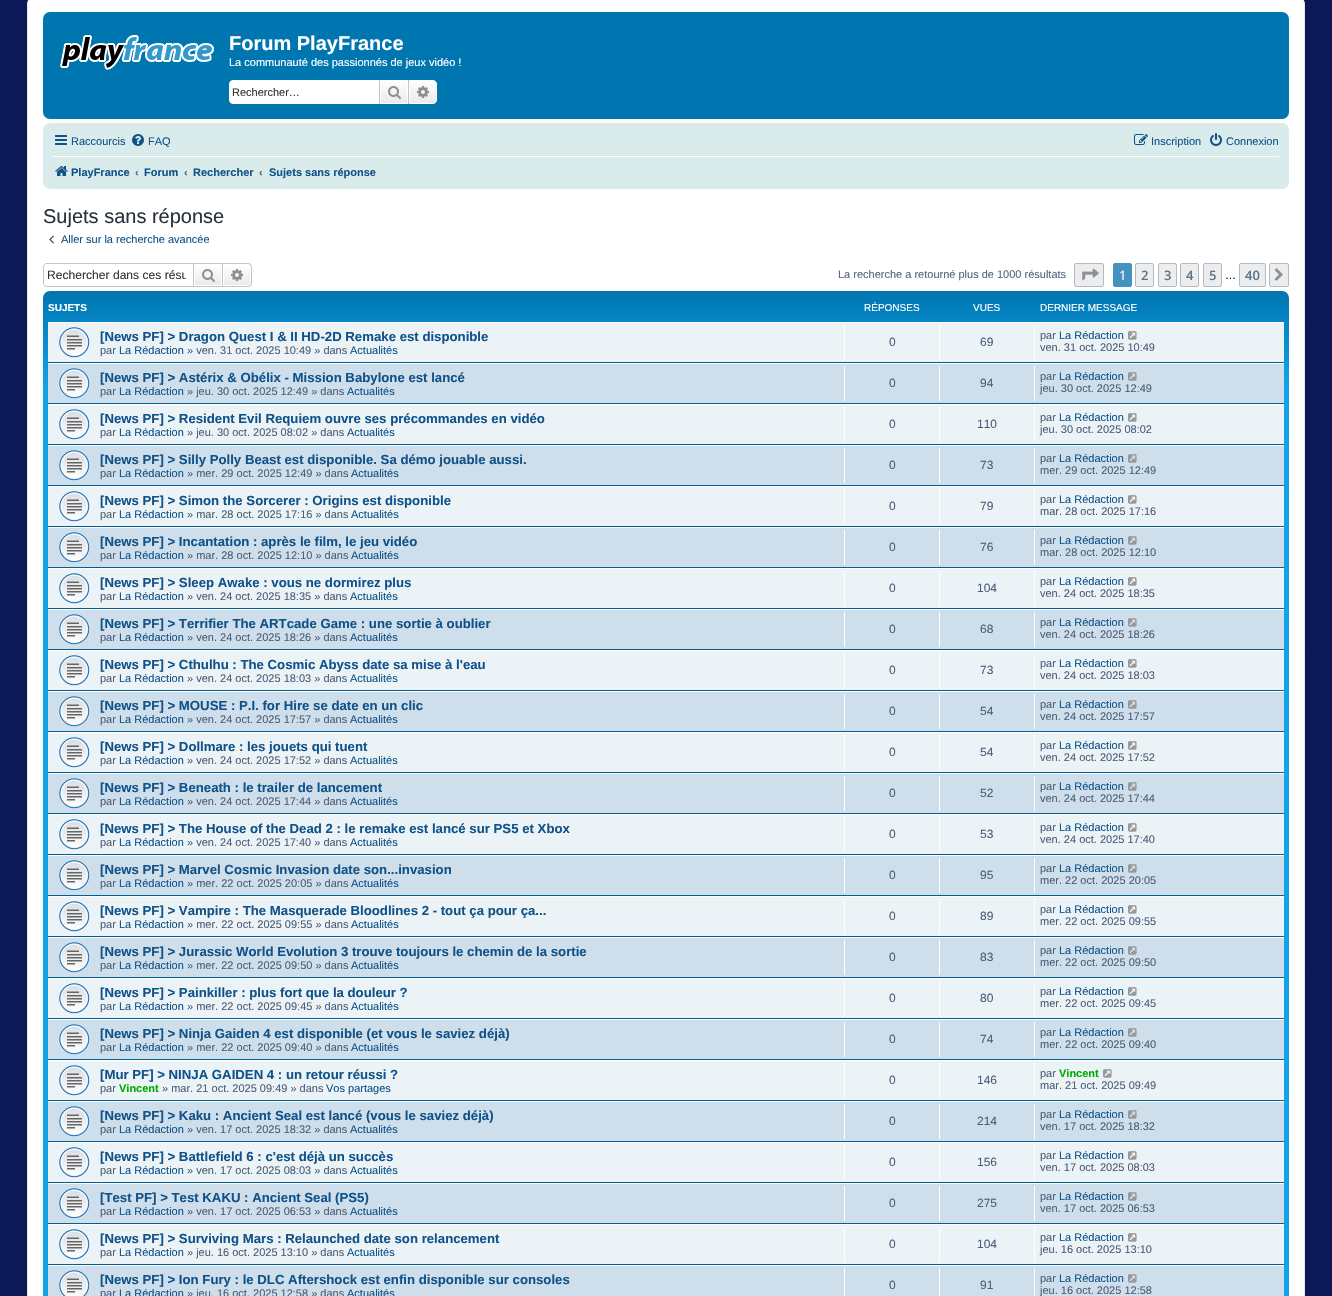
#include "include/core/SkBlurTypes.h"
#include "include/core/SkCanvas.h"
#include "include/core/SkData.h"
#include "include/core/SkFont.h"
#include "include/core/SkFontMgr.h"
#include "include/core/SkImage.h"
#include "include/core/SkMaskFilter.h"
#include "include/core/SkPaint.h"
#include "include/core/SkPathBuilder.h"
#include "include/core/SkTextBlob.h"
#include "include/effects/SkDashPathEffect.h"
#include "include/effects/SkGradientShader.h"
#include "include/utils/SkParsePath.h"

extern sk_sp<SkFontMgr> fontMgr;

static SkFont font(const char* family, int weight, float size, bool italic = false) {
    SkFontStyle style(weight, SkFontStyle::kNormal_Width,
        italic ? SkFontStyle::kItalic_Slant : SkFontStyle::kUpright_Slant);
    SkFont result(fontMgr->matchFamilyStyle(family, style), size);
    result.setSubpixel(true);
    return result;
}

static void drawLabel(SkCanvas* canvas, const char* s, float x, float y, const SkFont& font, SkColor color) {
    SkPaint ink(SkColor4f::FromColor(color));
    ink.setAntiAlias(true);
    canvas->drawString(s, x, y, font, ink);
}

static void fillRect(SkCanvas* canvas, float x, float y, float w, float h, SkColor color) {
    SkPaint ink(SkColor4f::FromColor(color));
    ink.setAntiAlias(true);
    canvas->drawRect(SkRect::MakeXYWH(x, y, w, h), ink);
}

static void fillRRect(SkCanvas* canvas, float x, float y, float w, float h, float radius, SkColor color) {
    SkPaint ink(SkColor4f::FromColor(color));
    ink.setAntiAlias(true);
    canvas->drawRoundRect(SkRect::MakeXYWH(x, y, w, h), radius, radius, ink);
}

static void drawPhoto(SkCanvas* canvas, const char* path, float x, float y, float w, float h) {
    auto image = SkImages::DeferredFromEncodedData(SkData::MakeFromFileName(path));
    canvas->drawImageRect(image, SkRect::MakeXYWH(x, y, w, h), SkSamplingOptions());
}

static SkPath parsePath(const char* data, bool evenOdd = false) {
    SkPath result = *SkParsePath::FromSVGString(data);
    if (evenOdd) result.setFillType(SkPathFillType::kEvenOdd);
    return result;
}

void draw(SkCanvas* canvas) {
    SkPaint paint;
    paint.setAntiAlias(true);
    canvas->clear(0xFF0D1856);
    paint.setColor(0xFFFFFFFF);
    canvas->drawRoundRect(SkRect::MakeXYWH(27.5f, -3.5f, 1277, 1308), 7.5f, 7.5f, paint);
    paint.setStroke(true);
    paint.setStrokeWidth(1);
    paint.setColor(0xFFE6E9ED);
    canvas->drawRoundRect(SkRect::MakeXYWH(27.5f, -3.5f, 1277, 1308), 7.5f, 7.5f, paint);
    fillRRect(canvas, 43, 12, 1246, 107, 7, 0xFF0076B1);
    drawPhoto(canvas, "assets/img1.png", 60, 35, 154, 35);
    SkFont font1 = font("Liberation Sans", 700, 20);
    drawLabel(canvas, "Forum PlayFrance", 229, 50, font1, 0xFFFFFFFF);
    SkFont font2 = font("Liberation Sans", 400, 11);
    drawLabel(canvas, "La communauté des passionnés de jeux vidéo !", 229, 66, font2, 0xFFFFFFFF);
    paint.setStroke(false);
    paint.setColor(0xFFFFFFFF);
    canvas->drawPath(parsePath("M233 80H379V104H233C231 104 229 102 229 100V84C229 82 231 80 233 80Z"), paint);
    drawLabel(canvas, "Rechercher…", 232, 96, font2, 0xFF333333);
    {
        const SkColor colors[] = {0xFFFFFFFF, 0xFFE9E9E9};
        const float stops[] = {0, 1};
        const SkPoint ends[] = {{394, 80}, {394, 104}};
        paint.setShader(SkGradientShader::MakeLinear(ends, colors, stops, 2, SkTileMode::kClamp));
        paint.setAlpha(255);
    }
    canvas->drawRect(SkRect::MakeXYWH(381, 81, 26, 22), paint);
    paint.setStroke(true);
    paint.setShader(nullptr);
    paint.setColor(0xFFFFFFFF);
    canvas->drawRect(SkRect::MakeXYWH(380.5f, 80.5f, 27, 23), paint);
    fillRect(canvas, 408, 80, 1, 24, 0xFFC7C3BF);
    fillRect(canvas, 379, 80, 1, 24, 0xFFC7C3BF);
    drawPhoto(canvas, "assets/img2.png", 388, 86, 13, 13);
    paint.setStroke(false);
    {
        const SkColor colors[] = {0xFFFFFFFF, 0xFFE9E9E9};
        const float stops[] = {0, 1};
        const SkPoint ends[] = {{423, 80}, {423, 104}};
        paint.setShader(SkGradientShader::MakeLinear(ends, colors, stops, 2, SkTileMode::kClamp));
        paint.setAlpha(255);
    }
    canvas->drawPath(parsePath("M409.5 80.5H433C435 80.5 436.5 82 436.5 84V100C436.5 102 435 103.5 433 103.5H409.5Z"), paint);
    paint.setStroke(true);
    paint.setShader(nullptr);
    paint.setColor(0xFFFFFFFF);
    canvas->drawPath(parsePath("M409.5 80.5H433C435 80.5 436.5 82 436.5 84V100C436.5 102 435 103.5 433 103.5H409.5Z"), paint);
    drawPhoto(canvas, "assets/img3.png", 417, 86, 12, 12);
    fillRRect(canvas, 43, 123, 1246, 66, 7, 0xFFD9EBEB);
    drawPhoto(canvas, "assets/img4.png", 55, 135, 12, 10);
    drawLabel(canvas, "Raccourcis", 71, 145, font2, 0xFF105289);
    drawPhoto(canvas, "assets/img5.png", 132, 134, 12, 12);
    drawLabel(canvas, "FAQ", 148, 145, font2, 0xFF105289);
    drawPhoto(canvas, "assets/img6.png", 1134, 134, 14, 11);
    drawLabel(canvas, "Inscription", 1151, 145, font2, 0xFF105289);
    drawPhoto(canvas, "assets/img7.png", 1210, 133, 12, 13);
    drawLabel(canvas, "Connexion", 1226, 145, font2, 0xFF105289);
    fillRect(canvas, 53, 156, 1226, 1, 0xFFFFFFFF);
    drawPhoto(canvas, "assets/img8.png", 55, 166, 13, 10);
    SkFont font3 = font("Liberation Sans", 700, 11);
    drawLabel(canvas, "PlayFrance", 71, 176, font3, 0xFF105289);
    drawLabel(canvas, "‹", 135, 176, font3, 0xFF536482);
    drawLabel(canvas, "Forum", 144, 176, font3, 0xFF105289);
    drawLabel(canvas, "‹", 184, 176, font3, 0xFF536482);
    drawLabel(canvas, "Rechercher", 193, 176, font3, 0xFF105289);
    drawLabel(canvas, "‹", 259, 176, font3, 0xFF536482);
    drawLabel(canvas, "Sujets sans réponse", 269, 176, font3, 0xFF105289);
    SkFont font4 = font("Liberation Sans", 400, 20);
    drawLabel(canvas, "Sujets sans réponse", 43, 223, font4, 0xFF28313F);
    drawPhoto(canvas, "assets/img9.png", 49, 235, 5, 9);
    drawLabel(canvas, "Aller sur la recherche avancée", 61, 243, font2, 0xFF105289);
    paint.setStroke(false);
    paint.setColor(0xFFC7C3BF);
    canvas->drawPath(parsePath("M47 263H193V287H47C45 287 43 285 43 283V267C43 265 45 263 47 263ZM47 264H193V286H47C45 286 44 285 44 283V267C44 265 45 264 47 264Z", true), paint);
    canvas->save();
    canvas->clipRect(SkRect::MakeXYWH(47, 268, 139, 14));
    SkFont font5 = font("Liberation Sans", 400, 12.1f);
    drawLabel(canvas, "Rechercher dans ces résu", 47, 279, font5, 0xFF333333);
    canvas->restore();
    {
        const SkColor colors[] = {0xFFFFFFFF, 0xFFE9E9E9};
        const float stops[] = {0, 1};
        const SkPoint ends[] = {{208, 264}, {208, 286}};
        paint.setShader(SkGradientShader::MakeLinear(ends, colors, stops, 2, SkTileMode::kClamp));
        paint.setAlpha(255);
    }
    canvas->drawRect(SkRect::MakeXYWH(195, 267, 26, 18), paint);
    paint.setStroke(true);
    paint.setShader(nullptr);
    paint.setColor(0xFFC7C3BF);
    canvas->drawRect(SkRect::MakeXYWH(193.5f, 263.5f, 29, 23), paint);
    drawPhoto(canvas, "assets/img10.png", 202, 269, 13, 13);
    paint.setStroke(false);
    {
        const SkColor colors[] = {0xFFFFFFFF, 0xFFE9E9E9};
        const float stops[] = {0, 1};
        const SkPoint ends[] = {{237, 264}, {237, 286}};
        paint.setShader(SkGradientShader::MakeLinear(ends, colors, stops, 2, SkTileMode::kClamp));
        paint.setAlpha(255);
    }
    canvas->drawPath(parsePath("M223.5 264.5H248C249.5 264.5 250.5 265.5 250.5 267V283C250.5 284.5 249.5 285.5 248 285.5H223.5Z"), paint);
    paint.setStroke(true);
    paint.setShader(nullptr);
    paint.setColor(0xFFFFFFFF);
    canvas->drawPath(parsePath("M223.5 264.5H248C249.5 264.5 250.5 265.5 250.5 267V283C250.5 284.5 249.5 285.5 248 285.5H223.5Z"), paint);
    paint.setStroke(false);
    paint.setColor(0xFFC7C3BF);
    canvas->drawPath(parsePath("M223 263H248C250 263 252 265 252 267V283C252 285 250 287 248 287H223ZM223 264H248C249.5 264 251 265.5 251 267V283C251 284.5 249.5 286 248 286H223Z", true), paint);
    drawPhoto(canvas, "assets/img11.png", 231, 269, 12, 12);
    drawLabel(canvas, "La recherche a retourné plus de 1000 résultats", 838, 278, font2, 0xFF536482);
    paint.setColor(0xFFECEDEE);
    canvas->drawRoundRect(SkRect::MakeXYWH(1074.5f, 263.5f, 29, 23), 1.5f, 1.5f, paint);
    paint.setStroke(true);
    paint.setColor(0xFFB4BAC0);
    canvas->drawRoundRect(SkRect::MakeXYWH(1074.5f, 263.5f, 29, 23), 1.5f, 1.5f, paint);
    drawPhoto(canvas, "assets/img12.png", 1082, 268, 17, 13);
    paint.setStroke(false);
    paint.setColor(0xFF4692BF);
    canvas->drawRoundRect(SkRect::MakeXYWH(1113.5f, 263.5f, 18, 23), 1.5f, 1.5f, paint);
    paint.setStroke(true);
    canvas->drawRoundRect(SkRect::MakeXYWH(1113.5f, 263.5f, 18, 23), 1.5f, 1.5f, paint);
    SkFont font6 = font("Open Sans", 400, 13);
    drawLabel(canvas, "1", 1119, 280, font6, 0xFFFFFFFF);
    paint.setStroke(false);
    paint.setColor(0xFFECEDEE);
    canvas->drawRoundRect(SkRect::MakeXYWH(1135.5f, 263.5f, 18, 23), 1.5f, 1.5f, paint);
    paint.setStroke(true);
    paint.setColor(0xFFB4BAC0);
    canvas->drawRoundRect(SkRect::MakeXYWH(1135.5f, 263.5f, 18, 23), 1.5f, 1.5f, paint);
    SkFont font7 = font("Open Sans", 600, 13);
    drawLabel(canvas, "2", 1141, 280, font7, 0xFF5C758C);
    paint.setStroke(false);
    paint.setColor(0xFFECEDEE);
    canvas->drawRoundRect(SkRect::MakeXYWH(1158.5f, 263.5f, 18, 23), 1.5f, 1.5f, paint);
    paint.setStroke(true);
    paint.setColor(0xFFB4BAC0);
    canvas->drawRoundRect(SkRect::MakeXYWH(1158.5f, 263.5f, 18, 23), 1.5f, 1.5f, paint);
    drawLabel(canvas, "3", 1164, 280, font7, 0xFF5C758C);
    paint.setStroke(false);
    paint.setColor(0xFFECEDEE);
    canvas->drawRoundRect(SkRect::MakeXYWH(1180.5f, 263.5f, 18, 23), 1.5f, 1.5f, paint);
    paint.setStroke(true);
    paint.setColor(0xFFB4BAC0);
    canvas->drawRoundRect(SkRect::MakeXYWH(1180.5f, 263.5f, 18, 23), 1.5f, 1.5f, paint);
    drawLabel(canvas, "4", 1186, 280, font7, 0xFF5C758C);
    paint.setStroke(false);
    paint.setColor(0xFFECEDEE);
    canvas->drawRoundRect(SkRect::MakeXYWH(1203.5f, 263.5f, 18, 23), 1.5f, 1.5f, paint);
    paint.setStroke(true);
    paint.setColor(0xFFB4BAC0);
    canvas->drawRoundRect(SkRect::MakeXYWH(1203.5f, 263.5f, 18, 23), 1.5f, 1.5f, paint);
    drawLabel(canvas, "5", 1209, 280, font7, 0xFF5C758C);
    drawLabel(canvas, "…", 1225, 279, font2, 0xFF000000);
    paint.setStroke(false);
    paint.setColor(0xFFECEDEE);
    canvas->drawRoundRect(SkRect::MakeXYWH(1239.5f, 263.5f, 26, 23), 1.5f, 1.5f, paint);
    paint.setStroke(true);
    paint.setColor(0xFFB4BAC0);
    canvas->drawRoundRect(SkRect::MakeXYWH(1239.5f, 263.5f, 26, 23), 1.5f, 1.5f, paint);
    drawLabel(canvas, "40", 1245, 280, font7, 0xFF5C758C);
    paint.setStroke(false);
    paint.setColor(0xFFECEDEE);
    canvas->drawRoundRect(SkRect::MakeXYWH(1269.5f, 263.5f, 19, 23), 1.5f, 1.5f, paint);
    paint.setStroke(true);
    paint.setColor(0xFFB4BAC0);
    canvas->drawRoundRect(SkRect::MakeXYWH(1269.5f, 263.5f, 19, 23), 1.5f, 1.5f, paint);
    drawPhoto(canvas, "assets/img13.png", 1274, 268, 9, 13);
    paint.setStroke(false);
    {
        const SkColor colors[] = {0xFF6ACEFF, 0xFF0076B1, 0xFF12A3EB, 0xFF12A3EB};
        const float stops[] = {0, 0, 0.09f, 1};
        const SkPoint ends[] = {{666, 291}, {666, 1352}};
        paint.setShader(SkGradientShader::MakeLinear(ends, colors, stops, 4, SkTileMode::kClamp));
        paint.setAlpha(255);
    }
    canvas->drawRoundRect(SkRect::MakeXYWH(43, 291, 1246, 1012), 7, 7, paint);
    SkFont font8 = font("Liberation Sans", 700, 10);
    drawLabel(canvas, "SUJETS", 48, 311, font8, 0xFFFFFFFF);
    SkFont font9 = font("Liberation Sans", 400, 10);
    drawLabel(canvas, "RÉPONSES", 864, 311, font9, 0xFFFFFFFF);
    drawLabel(canvas, "VUES", 973, 311, font9, 0xFFFFFFFF);
    drawLabel(canvas, "DERNIER MESSAGE", 1040, 311, font9, 0xFFFFFFFF);
    fillRect(canvas, 48, 323, 1236, 39, 0xFFECF3F7);
    fillRect(canvas, 48, 322, 1236, 1, 0xFFFFFFFF);
    fillRect(canvas, 48, 362, 1236, 1, 0xFF00608F);
    drawPhoto(canvas, "assets/img14.png", 59, 327, 31, 31);
    SkFont font10 = font("Liberation Sans", 700, 13.2f);
    drawLabel(canvas, "[News PF] > Dragon Quest I & II HD-2D Remake est disponible", 100, 341, font10, 0xFF105289);
    drawLabel(canvas, "par", 100, 354, font2, 0xFF4C5D77);
    drawLabel(canvas, "La Rédaction", 119, 354, font2, 0xFF105289);
    drawLabel(canvas, "» ven. 31 oct. 2025 10:49 » dans", 187, 354, font2, 0xFF4C5D77);
    drawLabel(canvas, "Actualités", 350, 354, font2, 0xFF105289);
    fillRect(canvas, 844, 325, 1, 35, 0xFFFFFFFF);
    SkFont font11 = font("Liberation Sans", 400, 12);
    drawLabel(canvas, "0", 889, 346, font11, 0xFF4C5D77);
    fillRect(canvas, 939, 325, 1, 35, 0xFFFFFFFF);
    drawLabel(canvas, "69", 980, 346, font11, 0xFF4C5D77);
    fillRect(canvas, 1034, 325, 1, 35, 0xFFFFFFFF);
    drawLabel(canvas, "par", 1040, 339, font2, 0xFF4C5D77);
    drawLabel(canvas, "La Rédaction", 1059, 339, font2, 0xFF105289);
    drawPhoto(canvas, "assets/img15.png", 1128, 331, 9, 9);
    drawLabel(canvas, "ven. 31 oct. 2025 10:49", 1040, 351, font2, 0xFF4C5D77);
    fillRect(canvas, 48, 364, 1236, 39, 0xFFCEDEEA);
    fillRect(canvas, 48, 363, 1236, 1, 0xFFFFFFFF);
    fillRect(canvas, 48, 403, 1236, 1, 0xFF00608F);
    drawPhoto(canvas, "assets/img16.png", 59, 368, 31, 31);
    drawLabel(canvas, "[News PF] > Astérix & Obélix - Mission Babylone est lancé", 100, 382, font10, 0xFF105289);
    drawLabel(canvas, "par", 100, 395, font2, 0xFF4C5D77);
    drawLabel(canvas, "La Rédaction", 119, 395, font2, 0xFF105289);
    drawLabel(canvas, "» jeu. 30 oct. 2025 12:49 » dans", 187, 395, font2, 0xFF4C5D77);
    drawLabel(canvas, "Actualités", 347, 395, font2, 0xFF105289);
    fillRect(canvas, 844, 366, 1, 35, 0xFFFFFFFF);
    drawLabel(canvas, "0", 889, 387, font11, 0xFF4C5D77);
    fillRect(canvas, 939, 366, 1, 35, 0xFFFFFFFF);
    drawLabel(canvas, "94", 980, 387, font11, 0xFF4C5D77);
    fillRect(canvas, 1034, 366, 1, 35, 0xFFFFFFFF);
    drawLabel(canvas, "par", 1040, 380, font2, 0xFF4C5D77);
    drawLabel(canvas, "La Rédaction", 1059, 380, font2, 0xFF105289);
    drawPhoto(canvas, "assets/img17.png", 1128, 372, 9, 9);
    drawLabel(canvas, "jeu. 30 oct. 2025 12:49", 1040, 392, font2, 0xFF4C5D77);
    fillRect(canvas, 48, 405, 1236, 39, 0xFFECF3F7);
    fillRect(canvas, 48, 404, 1236, 1, 0xFFFFFFFF);
    fillRect(canvas, 48, 444, 1236, 1, 0xFF00608F);
    drawPhoto(canvas, "assets/img14.png", 59, 409, 31, 31);
    drawLabel(canvas, "[News PF] > Resident Evil Requiem ouvre ses précommandes en vidéo", 100, 423, font10, 0xFF105289);
    drawLabel(canvas, "par", 100, 436, font2, 0xFF4C5D77);
    drawLabel(canvas, "La Rédaction", 119, 436, font2, 0xFF105289);
    drawLabel(canvas, "» jeu. 30 oct. 2025 08:02 » dans", 187, 436, font2, 0xFF4C5D77);
    drawLabel(canvas, "Actualités", 347, 436, font2, 0xFF105289);
    fillRect(canvas, 844, 407, 1, 35, 0xFFFFFFFF);
    drawLabel(canvas, "0", 889, 428, font11, 0xFF4C5D77);
    fillRect(canvas, 939, 407, 1, 35, 0xFFFFFFFF);
    drawLabel(canvas, "110", 977, 428, font11, 0xFF4C5D77);
    fillRect(canvas, 1034, 407, 1, 35, 0xFFFFFFFF);
    drawLabel(canvas, "par", 1040, 421, font2, 0xFF4C5D77);
    drawLabel(canvas, "La Rédaction", 1059, 421, font2, 0xFF105289);
    drawPhoto(canvas, "assets/img15.png", 1128, 413, 9, 9);
    drawLabel(canvas, "jeu. 30 oct. 2025 08:02", 1040, 433, font2, 0xFF4C5D77);
    fillRect(canvas, 48, 446, 1236, 39, 0xFFCEDEEA);
    fillRect(canvas, 48, 445, 1236, 1, 0xFFFFFFFF);
    fillRect(canvas, 48, 485, 1236, 1, 0xFF00608F);
    drawPhoto(canvas, "assets/img16.png", 59, 450, 31, 31);
    drawLabel(canvas, "[News PF] > Silly Polly Beast est disponible. Sa démo jouable aussi.", 100, 464, font10, 0xFF105289);
    drawLabel(canvas, "par", 100, 477, font2, 0xFF4C5D77);
    drawLabel(canvas, "La Rédaction", 119, 477, font2, 0xFF105289);
    drawLabel(canvas, "» mer. 29 oct. 2025 12:49 » dans", 187, 477, font2, 0xFF4C5D77);
    drawLabel(canvas, "Actualités", 351, 477, font2, 0xFF105289);
    fillRect(canvas, 844, 448, 1, 35, 0xFFFFFFFF);
    drawLabel(canvas, "0", 889, 469, font11, 0xFF4C5D77);
    fillRect(canvas, 939, 448, 1, 35, 0xFFFFFFFF);
    drawLabel(canvas, "73", 980, 469, font11, 0xFF4C5D77);
    fillRect(canvas, 1034, 448, 1, 35, 0xFFFFFFFF);
    drawLabel(canvas, "par", 1040, 462, font2, 0xFF4C5D77);
    drawLabel(canvas, "La Rédaction", 1059, 462, font2, 0xFF105289);
    drawPhoto(canvas, "assets/img17.png", 1128, 454, 9, 9);
    drawLabel(canvas, "mer. 29 oct. 2025 12:49", 1040, 474, font2, 0xFF4C5D77);
    fillRect(canvas, 48, 487, 1236, 39, 0xFFECF3F7);
    fillRect(canvas, 48, 486, 1236, 1, 0xFFFFFFFF);
    fillRect(canvas, 48, 526, 1236, 1, 0xFF00608F);
    drawPhoto(canvas, "assets/img14.png", 59, 491, 31, 31);
    drawLabel(canvas, "[News PF] > Simon the Sorcerer : Origins est disponible", 100, 505, font10, 0xFF105289);
    drawLabel(canvas, "par", 100, 518, font2, 0xFF4C5D77);
    drawLabel(canvas, "La Rédaction", 119, 518, font2, 0xFF105289);
    drawLabel(canvas, "» mar. 28 oct. 2025 17:16 » dans", 187, 518, font2, 0xFF4C5D77);
    drawLabel(canvas, "Actualités", 351, 518, font2, 0xFF105289);
    fillRect(canvas, 844, 489, 1, 35, 0xFFFFFFFF);
    drawLabel(canvas, "0", 889, 510, font11, 0xFF4C5D77);
    fillRect(canvas, 939, 489, 1, 35, 0xFFFFFFFF);
    drawLabel(canvas, "79", 980, 510, font11, 0xFF4C5D77);
    fillRect(canvas, 1034, 489, 1, 35, 0xFFFFFFFF);
    drawLabel(canvas, "par", 1040, 503, font2, 0xFF4C5D77);
    drawLabel(canvas, "La Rédaction", 1059, 503, font2, 0xFF105289);
    drawPhoto(canvas, "assets/img15.png", 1128, 495, 9, 9);
    drawLabel(canvas, "mar. 28 oct. 2025 17:16", 1040, 515, font2, 0xFF4C5D77);
    fillRect(canvas, 48, 528, 1236, 39, 0xFFCEDEEA);
    fillRect(canvas, 48, 527, 1236, 1, 0xFFFFFFFF);
    fillRect(canvas, 48, 567, 1236, 1, 0xFF00608F);
    drawPhoto(canvas, "assets/img16.png", 59, 532, 31, 31);
    drawLabel(canvas, "[News PF] > Incantation : après le film, le jeu vidéo", 100, 546, font10, 0xFF105289);
    drawLabel(canvas, "par", 100, 559, font2, 0xFF4C5D77);
    drawLabel(canvas, "La Rédaction", 119, 559, font2, 0xFF105289);
    drawLabel(canvas, "» mar. 28 oct. 2025 12:10 » dans", 187, 559, font2, 0xFF4C5D77);
    drawLabel(canvas, "Actualités", 351, 559, font2, 0xFF105289);
    fillRect(canvas, 844, 530, 1, 35, 0xFFFFFFFF);
    drawLabel(canvas, "0", 889, 551, font11, 0xFF4C5D77);
    fillRect(canvas, 939, 530, 1, 35, 0xFFFFFFFF);
    drawLabel(canvas, "76", 980, 551, font11, 0xFF4C5D77);
    fillRect(canvas, 1034, 530, 1, 35, 0xFFFFFFFF);
    drawLabel(canvas, "par", 1040, 544, font2, 0xFF4C5D77);
    drawLabel(canvas, "La Rédaction", 1059, 544, font2, 0xFF105289);
    drawPhoto(canvas, "assets/img17.png", 1128, 536, 9, 9);
    drawLabel(canvas, "mar. 28 oct. 2025 12:10", 1040, 556, font2, 0xFF4C5D77);
    fillRect(canvas, 48, 569, 1236, 39, 0xFFECF3F7);
    fillRect(canvas, 48, 568, 1236, 1, 0xFFFFFFFF);
    fillRect(canvas, 48, 608, 1236, 1, 0xFF00608F);
    drawPhoto(canvas, "assets/img14.png", 59, 573, 31, 31);
    drawLabel(canvas, "[News PF] > Sleep Awake : vous ne dormirez plus", 100, 587, font10, 0xFF105289);
    drawLabel(canvas, "par", 100, 600, font2, 0xFF4C5D77);
    drawLabel(canvas, "La Rédaction", 119, 600, font2, 0xFF105289);
    drawLabel(canvas, "» ven. 24 oct. 2025 18:35 » dans", 187, 600, font2, 0xFF4C5D77);
    drawLabel(canvas, "Actualités", 350, 600, font2, 0xFF105289);
    fillRect(canvas, 844, 571, 1, 35, 0xFFFFFFFF);
    drawLabel(canvas, "0", 889, 592, font11, 0xFF4C5D77);
    fillRect(canvas, 939, 571, 1, 35, 0xFFFFFFFF);
    drawLabel(canvas, "104", 977, 592, font11, 0xFF4C5D77);
    fillRect(canvas, 1034, 571, 1, 35, 0xFFFFFFFF);
    drawLabel(canvas, "par", 1040, 585, font2, 0xFF4C5D77);
    drawLabel(canvas, "La Rédaction", 1059, 585, font2, 0xFF105289);
    drawPhoto(canvas, "assets/img15.png", 1128, 577, 9, 9);
    drawLabel(canvas, "ven. 24 oct. 2025 18:35", 1040, 597, font2, 0xFF4C5D77);
    fillRect(canvas, 48, 610, 1236, 39, 0xFFCEDEEA);
    fillRect(canvas, 48, 609, 1236, 1, 0xFFFFFFFF);
    fillRect(canvas, 48, 649, 1236, 1, 0xFF00608F);
    drawPhoto(canvas, "assets/img16.png", 59, 614, 31, 31);
    drawLabel(canvas, "[News PF] > Terrifier The ARTcade Game : une sortie à oublier", 100, 628, font10, 0xFF105289);
    drawLabel(canvas, "par", 100, 641, font2, 0xFF4C5D77);
    drawLabel(canvas, "La Rédaction", 119, 641, font2, 0xFF105289);
    drawLabel(canvas, "» ven. 24 oct. 2025 18:26 » dans", 187, 641, font2, 0xFF4C5D77);
    drawLabel(canvas, "Actualités", 350, 641, font2, 0xFF105289);
    fillRect(canvas, 844, 612, 1, 35, 0xFFFFFFFF);
    drawLabel(canvas, "0", 889, 633, font11, 0xFF4C5D77);
    fillRect(canvas, 939, 612, 1, 35, 0xFFFFFFFF);
    drawLabel(canvas, "68", 980, 633, font11, 0xFF4C5D77);
    fillRect(canvas, 1034, 612, 1, 35, 0xFFFFFFFF);
    drawLabel(canvas, "par", 1040, 626, font2, 0xFF4C5D77);
    drawLabel(canvas, "La Rédaction", 1059, 626, font2, 0xFF105289);
    drawPhoto(canvas, "assets/img17.png", 1128, 618, 9, 9);
    drawLabel(canvas, "ven. 24 oct. 2025 18:26", 1040, 638, font2, 0xFF4C5D77);
    fillRect(canvas, 48, 651, 1236, 39, 0xFFECF3F7);
    fillRect(canvas, 48, 650, 1236, 1, 0xFFFFFFFF);
    fillRect(canvas, 48, 690, 1236, 1, 0xFF00608F);
    drawPhoto(canvas, "assets/img14.png", 59, 655, 31, 31);
    drawLabel(canvas, "[News PF] > Cthulhu : The Cosmic Abyss date sa mise à l'eau", 100, 669, font10, 0xFF105289);
    drawLabel(canvas, "par", 100, 682, font2, 0xFF4C5D77);
    drawLabel(canvas, "La Rédaction", 119, 682, font2, 0xFF105289);
    drawLabel(canvas, "» ven. 24 oct. 2025 18:03 » dans", 187, 682, font2, 0xFF4C5D77);
    drawLabel(canvas, "Actualités", 350, 682, font2, 0xFF105289);
    fillRect(canvas, 844, 653, 1, 35, 0xFFFFFFFF);
    drawLabel(canvas, "0", 889, 674, font11, 0xFF4C5D77);
    fillRect(canvas, 939, 653, 1, 35, 0xFFFFFFFF);
    drawLabel(canvas, "73", 980, 674, font11, 0xFF4C5D77);
    fillRect(canvas, 1034, 653, 1, 35, 0xFFFFFFFF);
    drawLabel(canvas, "par", 1040, 667, font2, 0xFF4C5D77);
    drawLabel(canvas, "La Rédaction", 1059, 667, font2, 0xFF105289);
    drawPhoto(canvas, "assets/img15.png", 1128, 659, 9, 9);
    drawLabel(canvas, "ven. 24 oct. 2025 18:03", 1040, 679, font2, 0xFF4C5D77);
    fillRect(canvas, 48, 692, 1236, 39, 0xFFCEDEEA);
    fillRect(canvas, 48, 691, 1236, 1, 0xFFFFFFFF);
    fillRect(canvas, 48, 731, 1236, 1, 0xFF00608F);
    drawPhoto(canvas, "assets/img16.png", 59, 696, 31, 31);
    drawLabel(canvas, "[News PF] > MOUSE : P.I. for Hire se date en un clic", 100, 710, font10, 0xFF105289);
    drawLabel(canvas, "par", 100, 723, font2, 0xFF4C5D77);
    drawLabel(canvas, "La Rédaction", 119, 723, font2, 0xFF105289);
    drawLabel(canvas, "» ven. 24 oct. 2025 17:57 » dans", 187, 723, font2, 0xFF4C5D77);
    drawLabel(canvas, "Actualités", 350, 723, font2, 0xFF105289);
    fillRect(canvas, 844, 694, 1, 35, 0xFFFFFFFF);
    drawLabel(canvas, "0", 889, 715, font11, 0xFF4C5D77);
    fillRect(canvas, 939, 694, 1, 35, 0xFFFFFFFF);
    drawLabel(canvas, "54", 980, 715, font11, 0xFF4C5D77);
    fillRect(canvas, 1034, 694, 1, 35, 0xFFFFFFFF);
    drawLabel(canvas, "par", 1040, 708, font2, 0xFF4C5D77);
    drawLabel(canvas, "La Rédaction", 1059, 708, font2, 0xFF105289);
    drawPhoto(canvas, "assets/img17.png", 1128, 700, 9, 9);
    drawLabel(canvas, "ven. 24 oct. 2025 17:57", 1040, 720, font2, 0xFF4C5D77);
    fillRect(canvas, 48, 733, 1236, 39, 0xFFECF3F7);
    fillRect(canvas, 48, 732, 1236, 1, 0xFFFFFFFF);
    fillRect(canvas, 48, 772, 1236, 1, 0xFF00608F);
    drawPhoto(canvas, "assets/img14.png", 59, 737, 31, 31);
    drawLabel(canvas, "[News PF] > Dollmare : les jouets qui tuent", 100, 751, font10, 0xFF105289);
    drawLabel(canvas, "par", 100, 764, font2, 0xFF4C5D77);
    drawLabel(canvas, "La Rédaction", 119, 764, font2, 0xFF105289);
    drawLabel(canvas, "» ven. 24 oct. 2025 17:52 » dans", 187, 764, font2, 0xFF4C5D77);
    drawLabel(canvas, "Actualités", 350, 764, font2, 0xFF105289);
    fillRect(canvas, 844, 735, 1, 35, 0xFFFFFFFF);
    drawLabel(canvas, "0", 889, 756, font11, 0xFF4C5D77);
    fillRect(canvas, 939, 735, 1, 35, 0xFFFFFFFF);
    drawLabel(canvas, "54", 980, 756, font11, 0xFF4C5D77);
    fillRect(canvas, 1034, 735, 1, 35, 0xFFFFFFFF);
    drawLabel(canvas, "par", 1040, 749, font2, 0xFF4C5D77);
    drawLabel(canvas, "La Rédaction", 1059, 749, font2, 0xFF105289);
    drawPhoto(canvas, "assets/img15.png", 1128, 741, 9, 9);
    drawLabel(canvas, "ven. 24 oct. 2025 17:52", 1040, 761, font2, 0xFF4C5D77);
    fillRect(canvas, 48, 774, 1236, 39, 0xFFCEDEEA);
    fillRect(canvas, 48, 773, 1236, 1, 0xFFFFFFFF);
    fillRect(canvas, 48, 813, 1236, 1, 0xFF00608F);
    drawPhoto(canvas, "assets/img16.png", 59, 778, 31, 31);
    drawLabel(canvas, "[News PF] > Beneath : le trailer de lancement", 100, 792, font10, 0xFF105289);
    drawLabel(canvas, "par", 100, 805, font2, 0xFF4C5D77);
    drawLabel(canvas, "La Rédaction", 119, 805, font2, 0xFF105289);
    drawLabel(canvas, "» ven. 24 oct. 2025 17:44 » dans", 187, 805, font2, 0xFF4C5D77);
    drawLabel(canvas, "Actualités", 350, 805, font2, 0xFF105289);
    fillRect(canvas, 844, 776, 1, 35, 0xFFFFFFFF);
    drawLabel(canvas, "0", 889, 797, font11, 0xFF4C5D77);
    fillRect(canvas, 939, 776, 1, 35, 0xFFFFFFFF);
    drawLabel(canvas, "52", 980, 797, font11, 0xFF4C5D77);
    fillRect(canvas, 1034, 776, 1, 35, 0xFFFFFFFF);
    drawLabel(canvas, "par", 1040, 790, font2, 0xFF4C5D77);
    drawLabel(canvas, "La Rédaction", 1059, 790, font2, 0xFF105289);
    drawPhoto(canvas, "assets/img17.png", 1128, 782, 9, 9);
    drawLabel(canvas, "ven. 24 oct. 2025 17:44", 1040, 802, font2, 0xFF4C5D77);
    fillRect(canvas, 48, 815, 1236, 39, 0xFFECF3F7);
    fillRect(canvas, 48, 814, 1236, 1, 0xFFFFFFFF);
    fillRect(canvas, 48, 854, 1236, 1, 0xFF00608F);
    drawPhoto(canvas, "assets/img14.png", 59, 819, 31, 31);
    drawLabel(canvas, "[News PF] > The House of the Dead 2 : le remake est lancé sur PS5 et Xbox", 100, 833, font10, 0xFF105289);
    drawLabel(canvas, "par", 100, 846, font2, 0xFF4C5D77);
    drawLabel(canvas, "La Rédaction", 119, 846, font2, 0xFF105289);
    drawLabel(canvas, "» ven. 24 oct. 2025 17:40 » dans", 187, 846, font2, 0xFF4C5D77);
    drawLabel(canvas, "Actualités", 350, 846, font2, 0xFF105289);
    fillRect(canvas, 844, 817, 1, 35, 0xFFFFFFFF);
    drawLabel(canvas, "0", 889, 838, font11, 0xFF4C5D77);
    fillRect(canvas, 939, 817, 1, 35, 0xFFFFFFFF);
    drawLabel(canvas, "53", 980, 838, font11, 0xFF4C5D77);
    fillRect(canvas, 1034, 817, 1, 35, 0xFFFFFFFF);
    drawLabel(canvas, "par", 1040, 831, font2, 0xFF4C5D77);
    drawLabel(canvas, "La Rédaction", 1059, 831, font2, 0xFF105289);
    drawPhoto(canvas, "assets/img15.png", 1128, 823, 9, 9);
    drawLabel(canvas, "ven. 24 oct. 2025 17:40", 1040, 843, font2, 0xFF4C5D77);
    fillRect(canvas, 48, 856, 1236, 39, 0xFFCEDEEA);
    fillRect(canvas, 48, 855, 1236, 1, 0xFFFFFFFF);
    fillRect(canvas, 48, 895, 1236, 1, 0xFF00608F);
    drawPhoto(canvas, "assets/img16.png", 59, 860, 31, 31);
    drawLabel(canvas, "[News PF] > Marvel Cosmic Invasion date son...invasion", 100, 874, font10, 0xFF105289);
    drawLabel(canvas, "par", 100, 887, font2, 0xFF4C5D77);
    drawLabel(canvas, "La Rédaction", 119, 887, font2, 0xFF105289);
    drawLabel(canvas, "» mer. 22 oct. 2025 20:05 » dans", 187, 887, font2, 0xFF4C5D77);
    drawLabel(canvas, "Actualités", 351, 887, font2, 0xFF105289);
    fillRect(canvas, 844, 858, 1, 35, 0xFFFFFFFF);
    drawLabel(canvas, "0", 889, 879, font11, 0xFF4C5D77);
    fillRect(canvas, 939, 858, 1, 35, 0xFFFFFFFF);
    drawLabel(canvas, "95", 980, 879, font11, 0xFF4C5D77);
    fillRect(canvas, 1034, 858, 1, 35, 0xFFFFFFFF);
    drawLabel(canvas, "par", 1040, 872, font2, 0xFF4C5D77);
    drawLabel(canvas, "La Rédaction", 1059, 872, font2, 0xFF105289);
    drawPhoto(canvas, "assets/img17.png", 1128, 864, 9, 9);
    drawLabel(canvas, "mer. 22 oct. 2025 20:05", 1040, 884, font2, 0xFF4C5D77);
    fillRect(canvas, 48, 897, 1236, 39, 0xFFECF3F7);
    fillRect(canvas, 48, 896, 1236, 1, 0xFFFFFFFF);
    fillRect(canvas, 48, 936, 1236, 1, 0xFF00608F);
    drawPhoto(canvas, "assets/img14.png", 59, 901, 31, 31);
    drawLabel(canvas, "[News PF] > Vampire : The Masquerade Bloodlines 2 - tout ça pour ça...", 100, 915, font10, 0xFF105289);
    drawLabel(canvas, "par", 100, 928, font2, 0xFF4C5D77);
    drawLabel(canvas, "La Rédaction", 119, 928, font2, 0xFF105289);
    drawLabel(canvas, "» mer. 22 oct. 2025 09:55 » dans", 187, 928, font2, 0xFF4C5D77);
    drawLabel(canvas, "Actualités", 351, 928, font2, 0xFF105289);
    fillRect(canvas, 844, 899, 1, 35, 0xFFFFFFFF);
    drawLabel(canvas, "0", 889, 920, font11, 0xFF4C5D77);
    fillRect(canvas, 939, 899, 1, 35, 0xFFFFFFFF);
    drawLabel(canvas, "89", 980, 920, font11, 0xFF4C5D77);
    fillRect(canvas, 1034, 899, 1, 35, 0xFFFFFFFF);
    drawLabel(canvas, "par", 1040, 913, font2, 0xFF4C5D77);
    drawLabel(canvas, "La Rédaction", 1059, 913, font2, 0xFF105289);
    drawPhoto(canvas, "assets/img15.png", 1128, 905, 9, 9);
    drawLabel(canvas, "mer. 22 oct. 2025 09:55", 1040, 925, font2, 0xFF4C5D77);
    fillRect(canvas, 48, 938, 1236, 39, 0xFFCEDEEA);
    fillRect(canvas, 48, 937, 1236, 1, 0xFFFFFFFF);
    fillRect(canvas, 48, 977, 1236, 1, 0xFF00608F);
    drawPhoto(canvas, "assets/img16.png", 59, 942, 31, 31);
    drawLabel(canvas, "[News PF] > Jurassic World Evolution 3 trouve toujours le chemin de la sortie", 100, 956, font10, 0xFF105289);
    drawLabel(canvas, "par", 100, 969, font2, 0xFF4C5D77);
    drawLabel(canvas, "La Rédaction", 119, 969, font2, 0xFF105289);
    drawLabel(canvas, "» mer. 22 oct. 2025 09:50 » dans", 187, 969, font2, 0xFF4C5D77);
    drawLabel(canvas, "Actualités", 351, 969, font2, 0xFF105289);
    fillRect(canvas, 844, 940, 1, 35, 0xFFFFFFFF);
    drawLabel(canvas, "0", 889, 961, font11, 0xFF4C5D77);
    fillRect(canvas, 939, 940, 1, 35, 0xFFFFFFFF);
    drawLabel(canvas, "83", 980, 961, font11, 0xFF4C5D77);
    fillRect(canvas, 1034, 940, 1, 35, 0xFFFFFFFF);
    drawLabel(canvas, "par", 1040, 954, font2, 0xFF4C5D77);
    drawLabel(canvas, "La Rédaction", 1059, 954, font2, 0xFF105289);
    drawPhoto(canvas, "assets/img17.png", 1128, 946, 9, 9);
    drawLabel(canvas, "mer. 22 oct. 2025 09:50", 1040, 966, font2, 0xFF4C5D77);
    fillRect(canvas, 48, 979, 1236, 39, 0xFFECF3F7);
    fillRect(canvas, 48, 978, 1236, 1, 0xFFFFFFFF);
    fillRect(canvas, 48, 1018, 1236, 1, 0xFF00608F);
    drawPhoto(canvas, "assets/img14.png", 59, 983, 31, 31);
    drawLabel(canvas, "[News PF] > Painkiller : plus fort que la douleur ?", 100, 997, font10, 0xFF105289);
    drawLabel(canvas, "par", 100, 1010, font2, 0xFF4C5D77);
    drawLabel(canvas, "La Rédaction", 119, 1010, font2, 0xFF105289);
    drawLabel(canvas, "» mer. 22 oct. 2025 09:45 » dans", 187, 1010, font2, 0xFF4C5D77);
    drawLabel(canvas, "Actualités", 351, 1010, font2, 0xFF105289);
    fillRect(canvas, 844, 981, 1, 35, 0xFFFFFFFF);
    drawLabel(canvas, "0", 889, 1002, font11, 0xFF4C5D77);
    fillRect(canvas, 939, 981, 1, 35, 0xFFFFFFFF);
    drawLabel(canvas, "80", 980, 1002, font11, 0xFF4C5D77);
    fillRect(canvas, 1034, 981, 1, 35, 0xFFFFFFFF);
    drawLabel(canvas, "par", 1040, 995, font2, 0xFF4C5D77);
    drawLabel(canvas, "La Rédaction", 1059, 995, font2, 0xFF105289);
    drawPhoto(canvas, "assets/img15.png", 1128, 987, 9, 9);
    drawLabel(canvas, "mer. 22 oct. 2025 09:45", 1040, 1007, font2, 0xFF4C5D77);
    fillRect(canvas, 48, 1020, 1236, 39, 0xFFCEDEEA);
    fillRect(canvas, 48, 1019, 1236, 1, 0xFFFFFFFF);
    fillRect(canvas, 48, 1059, 1236, 1, 0xFF00608F);
    drawPhoto(canvas, "assets/img16.png", 59, 1024, 31, 31);
    drawLabel(canvas, "[News PF] > Ninja Gaiden 4 est disponible (et vous le saviez déjà)", 100, 1038, font10, 0xFF105289);
    drawLabel(canvas, "par", 100, 1051, font2, 0xFF4C5D77);
    drawLabel(canvas, "La Rédaction", 119, 1051, font2, 0xFF105289);
    drawLabel(canvas, "» mer. 22 oct. 2025 09:40 » dans", 187, 1051, font2, 0xFF4C5D77);
    drawLabel(canvas, "Actualités", 351, 1051, font2, 0xFF105289);
    fillRect(canvas, 844, 1022, 1, 35, 0xFFFFFFFF);
    drawLabel(canvas, "0", 889, 1043, font11, 0xFF4C5D77);
    fillRect(canvas, 939, 1022, 1, 35, 0xFFFFFFFF);
    drawLabel(canvas, "74", 980, 1043, font11, 0xFF4C5D77);
    fillRect(canvas, 1034, 1022, 1, 35, 0xFFFFFFFF);
    drawLabel(canvas, "par", 1040, 1036, font2, 0xFF4C5D77);
    drawLabel(canvas, "La Rédaction", 1059, 1036, font2, 0xFF105289);
    drawPhoto(canvas, "assets/img17.png", 1128, 1028, 9, 9);
    drawLabel(canvas, "mer. 22 oct. 2025 09:40", 1040, 1048, font2, 0xFF4C5D77);
    fillRect(canvas, 48, 1061, 1236, 39, 0xFFECF3F7);
    fillRect(canvas, 48, 1060, 1236, 1, 0xFFFFFFFF);
    fillRect(canvas, 48, 1100, 1236, 1, 0xFF00608F);
    drawPhoto(canvas, "assets/img14.png", 59, 1065, 31, 31);
    drawLabel(canvas, "[Mur PF] > NINJA GAIDEN 4 : un retour réussi ?", 100, 1079, font10, 0xFF105289);
    drawLabel(canvas, "par", 100, 1092, font2, 0xFF4C5D77);
    drawLabel(canvas, "Vincent", 119, 1092, font3, 0xFF00AA00);
    drawLabel(canvas, "» mar. 21 oct. 2025 09:49 » dans", 162, 1092, font2, 0xFF4C5D77);
    drawLabel(canvas, "Vos partages", 326, 1092, font2, 0xFF105289);
    fillRect(canvas, 844, 1063, 1, 35, 0xFFFFFFFF);
    drawLabel(canvas, "0", 889, 1084, font11, 0xFF4C5D77);
    fillRect(canvas, 939, 1063, 1, 35, 0xFFFFFFFF);
    drawLabel(canvas, "146", 977, 1084, font11, 0xFF4C5D77);
    fillRect(canvas, 1034, 1063, 1, 35, 0xFFFFFFFF);
    drawLabel(canvas, "par", 1040, 1077, font2, 0xFF4C5D77);
    drawLabel(canvas, "Vincent", 1059, 1077, font3, 0xFF00AA00);
    drawPhoto(canvas, "assets/img15.png", 1103, 1069, 9, 9);
    drawLabel(canvas, "mar. 21 oct. 2025 09:49", 1040, 1089, font2, 0xFF4C5D77);
    fillRect(canvas, 48, 1102, 1236, 39, 0xFFCEDEEA);
    fillRect(canvas, 48, 1101, 1236, 1, 0xFFFFFFFF);
    fillRect(canvas, 48, 1141, 1236, 1, 0xFF00608F);
    drawPhoto(canvas, "assets/img16.png", 59, 1106, 31, 31);
    drawLabel(canvas, "[News PF] > Kaku : Ancient Seal est lancé (vous le saviez déjà)", 100, 1120, font10, 0xFF105289);
    drawLabel(canvas, "par", 100, 1133, font2, 0xFF4C5D77);
    drawLabel(canvas, "La Rédaction", 119, 1133, font2, 0xFF105289);
    drawLabel(canvas, "» ven. 17 oct. 2025 18:32 » dans", 187, 1133, font2, 0xFF4C5D77);
    drawLabel(canvas, "Actualités", 350, 1133, font2, 0xFF105289);
    fillRect(canvas, 844, 1104, 1, 35, 0xFFFFFFFF);
    drawLabel(canvas, "0", 889, 1125, font11, 0xFF4C5D77);
    fillRect(canvas, 939, 1104, 1, 35, 0xFFFFFFFF);
    drawLabel(canvas, "214", 977, 1125, font11, 0xFF4C5D77);
    fillRect(canvas, 1034, 1104, 1, 35, 0xFFFFFFFF);
    drawLabel(canvas, "par", 1040, 1118, font2, 0xFF4C5D77);
    drawLabel(canvas, "La Rédaction", 1059, 1118, font2, 0xFF105289);
    drawPhoto(canvas, "assets/img17.png", 1128, 1110, 9, 9);
    drawLabel(canvas, "ven. 17 oct. 2025 18:32", 1040, 1130, font2, 0xFF4C5D77);
    fillRect(canvas, 48, 1143, 1236, 39, 0xFFECF3F7);
    fillRect(canvas, 48, 1142, 1236, 1, 0xFFFFFFFF);
    fillRect(canvas, 48, 1182, 1236, 1, 0xFF00608F);
    drawPhoto(canvas, "assets/img14.png", 59, 1147, 31, 31);
    drawLabel(canvas, "[News PF] > Battlefield 6 : c'est déjà un succès", 100, 1161, font10, 0xFF105289);
    drawLabel(canvas, "par", 100, 1174, font2, 0xFF4C5D77);
    drawLabel(canvas, "La Rédaction", 119, 1174, font2, 0xFF105289);
    drawLabel(canvas, "» ven. 17 oct. 2025 08:03 » dans", 187, 1174, font2, 0xFF4C5D77);
    drawLabel(canvas, "Actualités", 350, 1174, font2, 0xFF105289);
    fillRect(canvas, 844, 1145, 1, 35, 0xFFFFFFFF);
    drawLabel(canvas, "0", 889, 1166, font11, 0xFF4C5D77);
    fillRect(canvas, 939, 1145, 1, 35, 0xFFFFFFFF);
    drawLabel(canvas, "156", 977, 1166, font11, 0xFF4C5D77);
    fillRect(canvas, 1034, 1145, 1, 35, 0xFFFFFFFF);
    drawLabel(canvas, "par", 1040, 1159, font2, 0xFF4C5D77);
    drawLabel(canvas, "La Rédaction", 1059, 1159, font2, 0xFF105289);
    drawPhoto(canvas, "assets/img15.png", 1128, 1151, 9, 9);
    drawLabel(canvas, "ven. 17 oct. 2025 08:03", 1040, 1171, font2, 0xFF4C5D77);
    fillRect(canvas, 48, 1184, 1236, 39, 0xFFCEDEEA);
    fillRect(canvas, 48, 1183, 1236, 1, 0xFFFFFFFF);
    fillRect(canvas, 48, 1223, 1236, 1, 0xFF00608F);
    drawPhoto(canvas, "assets/img16.png", 59, 1188, 31, 31);
    drawLabel(canvas, "[Test PF] > Test KAKU : Ancient Seal (PS5)", 100, 1202, font10, 0xFF105289);
    drawLabel(canvas, "par", 100, 1215, font2, 0xFF4C5D77);
    drawLabel(canvas, "La Rédaction", 119, 1215, font2, 0xFF105289);
    drawLabel(canvas, "» ven. 17 oct. 2025 06:53 » dans", 187, 1215, font2, 0xFF4C5D77);
    drawLabel(canvas, "Actualités", 350, 1215, font2, 0xFF105289);
    fillRect(canvas, 844, 1186, 1, 35, 0xFFFFFFFF);
    drawLabel(canvas, "0", 889, 1207, font11, 0xFF4C5D77);
    fillRect(canvas, 939, 1186, 1, 35, 0xFFFFFFFF);
    drawLabel(canvas, "275", 977, 1207, font11, 0xFF4C5D77);
    fillRect(canvas, 1034, 1186, 1, 35, 0xFFFFFFFF);
    drawLabel(canvas, "par", 1040, 1200, font2, 0xFF4C5D77);
    drawLabel(canvas, "La Rédaction", 1059, 1200, font2, 0xFF105289);
    drawPhoto(canvas, "assets/img17.png", 1128, 1192, 9, 9);
    drawLabel(canvas, "ven. 17 oct. 2025 06:53", 1040, 1212, font2, 0xFF4C5D77);
    fillRect(canvas, 48, 1225, 1236, 39, 0xFFECF3F7);
    fillRect(canvas, 48, 1224, 1236, 1, 0xFFFFFFFF);
    fillRect(canvas, 48, 1264, 1236, 1, 0xFF00608F);
    drawPhoto(canvas, "assets/img14.png", 59, 1229, 31, 31);
    drawLabel(canvas, "[News PF] > Surviving Mars : Relaunched date son relancement", 100, 1243, font10, 0xFF105289);
    drawLabel(canvas, "par", 100, 1256, font2, 0xFF4C5D77);
    drawLabel(canvas, "La Rédaction", 119, 1256, font2, 0xFF105289);
    drawLabel(canvas, "» jeu. 16 oct. 2025 13:10 » dans", 187, 1256, font2, 0xFF4C5D77);
    drawLabel(canvas, "Actualités", 347, 1256, font2, 0xFF105289);
    fillRect(canvas, 844, 1227, 1, 35, 0xFFFFFFFF);
    drawLabel(canvas, "0", 889, 1248, font11, 0xFF4C5D77);
    fillRect(canvas, 939, 1227, 1, 35, 0xFFFFFFFF);
    drawLabel(canvas, "104", 977, 1248, font11, 0xFF4C5D77);
    fillRect(canvas, 1034, 1227, 1, 35, 0xFFFFFFFF);
    drawLabel(canvas, "par", 1040, 1241, font2, 0xFF4C5D77);
    drawLabel(canvas, "La Rédaction", 1059, 1241, font2, 0xFF105289);
    drawPhoto(canvas, "assets/img15.png", 1128, 1233, 9, 9);
    drawLabel(canvas, "jeu. 16 oct. 2025 13:10", 1040, 1253, font2, 0xFF4C5D77);
    fillRect(canvas, 48, 1266, 1236, 30, 0xFFCEDEEA);
    fillRect(canvas, 48, 1265, 1236, 1, 0xFFFFFFFF);
    drawPhoto(canvas, "assets/img18.png", 59, 1270, 31, 26);
    drawLabel(canvas, "[News PF] > Ion Fury : le DLC Aftershock est enfin disponible sur consoles", 100, 1284, font10, 0xFF105289);
    drawLabel(canvas, "par", 100, 1297, font2, 0xFF4C5D77);
    drawLabel(canvas, "La Rédaction", 119, 1297, font2, 0xFF105289);
    drawLabel(canvas, "» jeu. 16 oct. 2025 12:58 » dans", 187, 1297, font2, 0xFF4C5D77);
    drawLabel(canvas, "Actualités", 347, 1297, font2, 0xFF105289);
    fillRect(canvas, 844, 1268, 1, 28, 0xFFFFFFFF);
    drawLabel(canvas, "0", 889, 1289, font11, 0xFF4C5D77);
    fillRect(canvas, 939, 1268, 1, 28, 0xFFFFFFFF);
    drawLabel(canvas, "91", 980, 1289, font11, 0xFF4C5D77);
    fillRect(canvas, 1034, 1268, 1, 28, 0xFFFFFFFF);
    drawLabel(canvas, "par", 1040, 1282, font2, 0xFF4C5D77);
    drawLabel(canvas, "La Rédaction", 1059, 1282, font2, 0xFF105289);
    drawPhoto(canvas, "assets/img17.png", 1128, 1274, 9, 9);
    drawLabel(canvas, "jeu. 16 oct. 2025 12:58", 1040, 1294, font2, 0xFF4C5D77);
}
